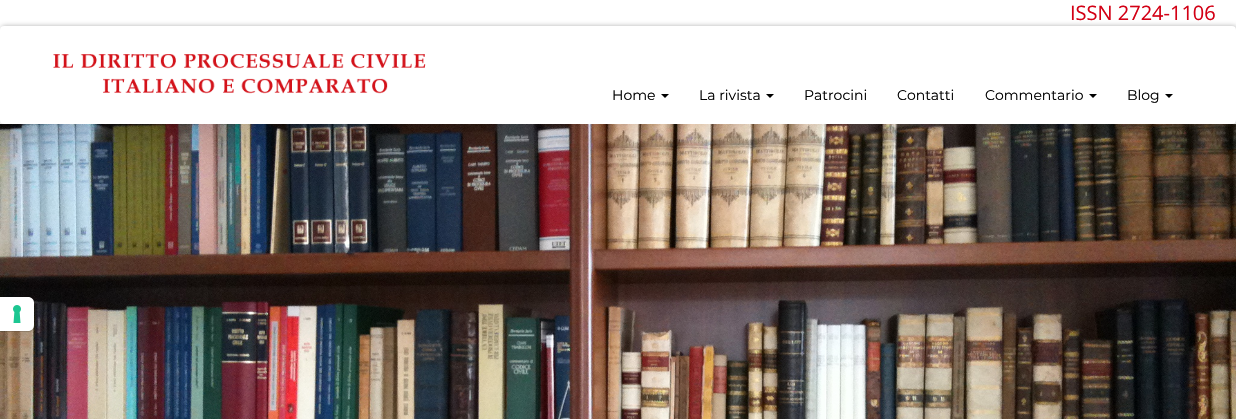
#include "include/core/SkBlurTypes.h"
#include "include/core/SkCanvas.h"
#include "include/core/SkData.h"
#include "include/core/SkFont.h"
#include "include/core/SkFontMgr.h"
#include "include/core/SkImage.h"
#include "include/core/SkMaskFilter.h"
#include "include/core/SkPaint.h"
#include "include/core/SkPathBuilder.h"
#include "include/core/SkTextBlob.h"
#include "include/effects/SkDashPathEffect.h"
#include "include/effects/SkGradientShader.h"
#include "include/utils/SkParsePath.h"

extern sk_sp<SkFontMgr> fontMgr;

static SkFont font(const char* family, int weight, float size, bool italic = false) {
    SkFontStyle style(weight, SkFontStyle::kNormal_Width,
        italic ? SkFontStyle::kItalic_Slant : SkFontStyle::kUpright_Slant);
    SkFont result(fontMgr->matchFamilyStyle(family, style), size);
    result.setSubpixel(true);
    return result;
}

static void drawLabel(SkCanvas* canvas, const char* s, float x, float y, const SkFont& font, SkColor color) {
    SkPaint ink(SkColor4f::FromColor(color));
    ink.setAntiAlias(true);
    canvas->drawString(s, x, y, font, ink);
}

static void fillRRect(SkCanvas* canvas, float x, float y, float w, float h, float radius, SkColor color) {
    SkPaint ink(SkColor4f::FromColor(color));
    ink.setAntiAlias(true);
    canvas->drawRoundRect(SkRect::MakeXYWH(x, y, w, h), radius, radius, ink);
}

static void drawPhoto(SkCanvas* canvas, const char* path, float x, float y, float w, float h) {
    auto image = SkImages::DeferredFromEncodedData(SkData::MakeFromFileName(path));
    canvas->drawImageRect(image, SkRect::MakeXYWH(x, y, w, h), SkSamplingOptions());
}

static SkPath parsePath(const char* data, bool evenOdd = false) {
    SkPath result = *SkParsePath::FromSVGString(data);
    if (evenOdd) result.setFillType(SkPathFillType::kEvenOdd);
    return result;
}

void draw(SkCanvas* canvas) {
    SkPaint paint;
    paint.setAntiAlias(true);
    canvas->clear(0xFFFFFFFF);
    SkFont font1 = font("Open Sans", 400, 20);
    drawLabel(canvas, "ISSN 2724-1106", 1070, 20, font1, 0xFFD30015);
    paint.setColor(0x4D000000);
    paint.setMaskFilter(SkMaskFilter::MakeBlur(kNormal_SkBlurStyle, 2.5f));
    canvas->drawRoundRect(SkRect::MakeXYWH(1, 26, 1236, 98), 4, 4, paint);
    paint.setMaskFilter(nullptr);
    fillRRect(canvas, 0, 26, 1236, 98, 4, 0xFFFFFFFF);
    drawPhoto(canvas, "assets/img1.png", 53, 54, 373, 40);
    SkFont font2 = font("Montserrat", 400, 14);
    drawLabel(canvas, "Home", 612, 100, font2, 0xFF000000);
    paint.setColor(0xFF000000);
    canvas->drawPath(parsePath("M661 94H669L665 98Z"), paint);
    drawLabel(canvas, "La rivista", 699, 100, font2, 0xFF000000);
    canvas->drawPath(parsePath("M766 94H774L770 98Z"), paint);
    drawLabel(canvas, "Patrocini", 804, 100, font2, 0xFF000000);
    drawLabel(canvas, "Contatti", 897, 100, font2, 0xFF000000);
    drawLabel(canvas, "Commentario", 985, 100, font2, 0xFF000000);
    canvas->drawPath(parsePath("M1089 94H1097L1093 98Z"), paint);
    drawLabel(canvas, "Blog", 1127, 100, font2, 0xFF000000);
    canvas->drawPath(parsePath("M1165 94H1173L1169 98Z"), paint);
    drawPhoto(canvas, "assets/img2.png", 0, 124, 1236, 295);
    paint.setStroke(true);
    paint.setStrokeWidth(1);
    paint.setColor(0x26000000);
    canvas->drawPath(parsePath("M-.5 296.5H28C31.5 296.5 34.5 299.5 34.5 303V325C34.5 328.5 31.5 331.5 28 331.5H-.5Z"), paint);
    paint.setStroke(false);
    paint.setColor(0xFFFFFFFF);
    canvas->drawPath(parsePath("M0 297H28C31.5 297 34 299.5 34 303V325C34 328.5 31.5 331 28 331H0Z"), paint);
    drawPhoto(canvas, "assets/img3.png", 13, 305, 8, 18);
}
